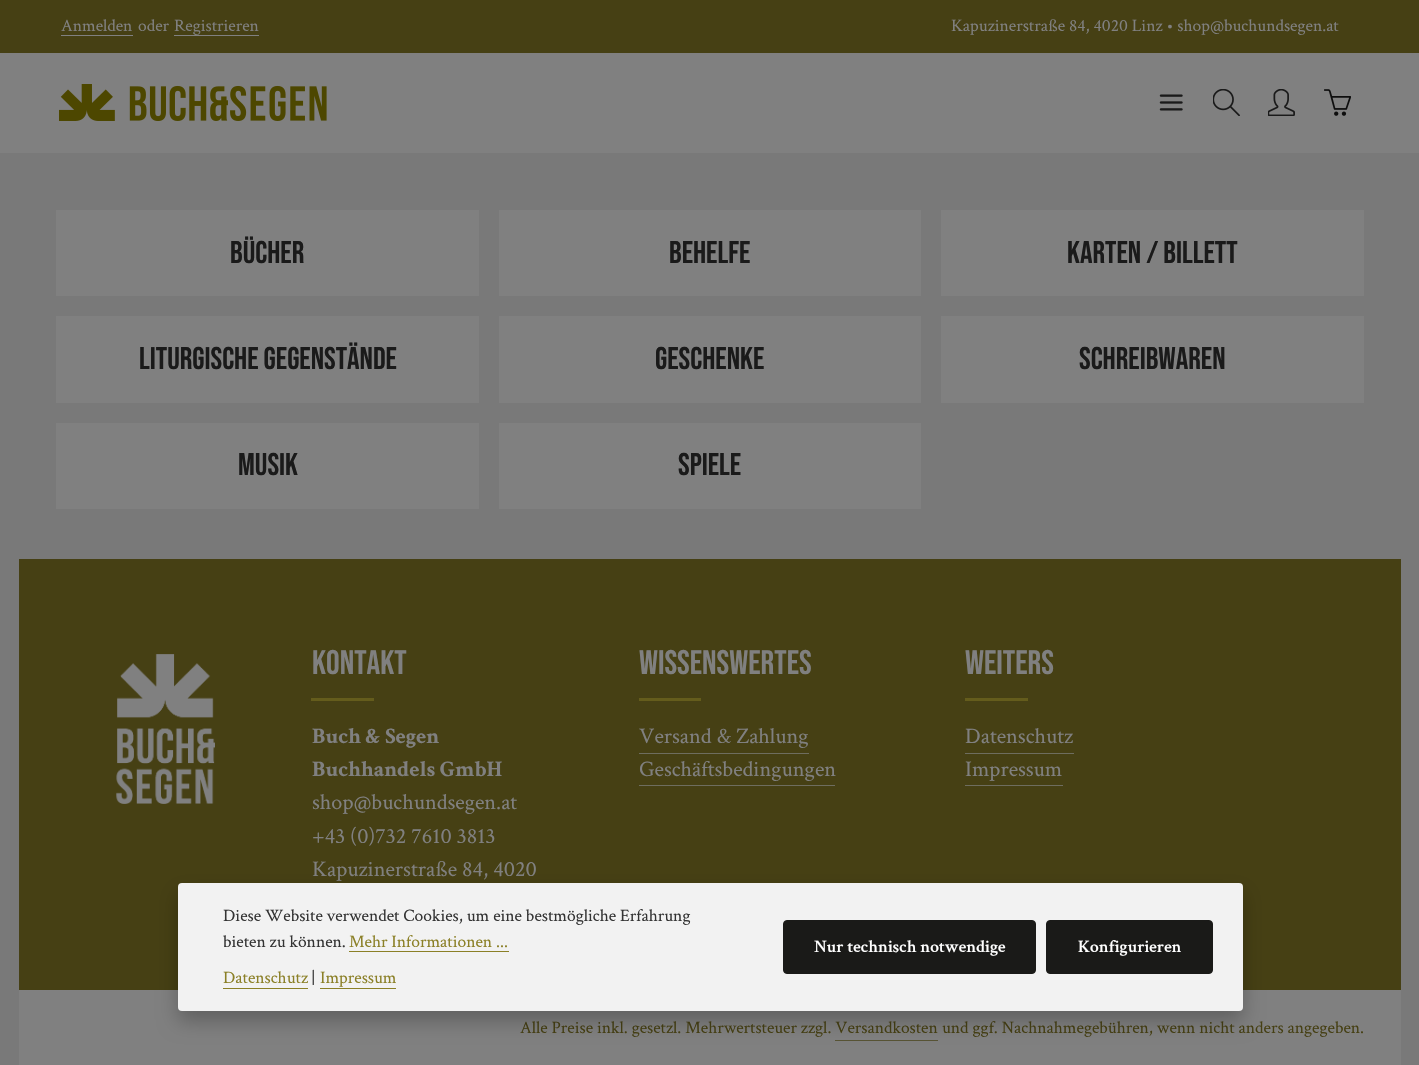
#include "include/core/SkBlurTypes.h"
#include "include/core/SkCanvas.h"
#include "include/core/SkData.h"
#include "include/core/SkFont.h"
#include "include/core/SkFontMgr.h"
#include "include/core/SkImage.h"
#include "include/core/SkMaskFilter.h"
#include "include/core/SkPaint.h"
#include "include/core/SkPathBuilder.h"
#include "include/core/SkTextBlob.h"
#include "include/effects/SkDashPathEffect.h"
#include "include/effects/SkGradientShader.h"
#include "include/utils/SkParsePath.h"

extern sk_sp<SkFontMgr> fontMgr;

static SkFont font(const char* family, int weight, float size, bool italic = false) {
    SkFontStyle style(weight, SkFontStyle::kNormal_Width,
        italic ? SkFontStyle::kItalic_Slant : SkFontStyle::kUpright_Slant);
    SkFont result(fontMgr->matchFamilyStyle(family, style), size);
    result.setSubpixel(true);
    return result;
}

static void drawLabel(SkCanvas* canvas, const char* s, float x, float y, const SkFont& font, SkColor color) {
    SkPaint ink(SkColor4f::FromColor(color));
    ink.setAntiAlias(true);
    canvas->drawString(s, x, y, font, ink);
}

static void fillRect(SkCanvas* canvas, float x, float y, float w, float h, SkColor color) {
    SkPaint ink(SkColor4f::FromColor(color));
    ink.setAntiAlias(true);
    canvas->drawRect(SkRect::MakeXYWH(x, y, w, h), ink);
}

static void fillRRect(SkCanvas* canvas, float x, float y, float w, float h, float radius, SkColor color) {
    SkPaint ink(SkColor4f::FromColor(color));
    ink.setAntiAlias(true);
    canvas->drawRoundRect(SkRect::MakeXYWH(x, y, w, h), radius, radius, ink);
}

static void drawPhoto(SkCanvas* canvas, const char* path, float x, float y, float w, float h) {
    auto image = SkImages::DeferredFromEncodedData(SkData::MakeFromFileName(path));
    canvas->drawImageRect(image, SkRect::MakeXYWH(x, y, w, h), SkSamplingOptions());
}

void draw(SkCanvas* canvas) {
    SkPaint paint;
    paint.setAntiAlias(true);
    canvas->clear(0xFF797979);
    fillRect(canvas, 0, 0, 1419, 53, 0xFF464014);
    SkFont font1 = font("Crimson Text", 400, 17.5f);
    drawLabel(canvas, "Anmelden", 61, 31, font1, 0xFF808080);
    fillRect(canvas, 61, 35, 72, 1, 0xFF808080);
    drawLabel(canvas, "oder", 138, 31, font1, 0xFF808080);
    drawLabel(canvas, "Registrieren", 174, 31, font1, 0xFF808080);
    fillRect(canvas, 174, 35, 85, 1, 0xFF808080);
    drawLabel(canvas, "Kapuzinerstraße 84, 4020 Linz • shop@buchundsegen.at", 951, 31, font1, 0xFF808080);
    fillRect(canvas, 0, 53, 1419, 100, 0xFF808080);
    drawPhoto(canvas, "assets/img1.png", 59, 84, 268, 37);
    drawPhoto(canvas, "assets/img2.png", 1159, 94, 24, 17);
    drawPhoto(canvas, "assets/img3.png", 1213, 89, 27, 27);
    drawPhoto(canvas, "assets/img4.png", 1268, 89, 27, 27);
    drawPhoto(canvas, "assets/img5.png", 1324, 89, 27, 27);
    fillRect(canvas, 56, 210, 423, 86, 0xFF808080);
    SkFont font2 = font("Bebas Neue", 400, 31.25f);
    drawLabel(canvas, "Bücher", 230, 263, font2, 0xFF1A1A1A);
    fillRect(canvas, 499, 210, 422, 86, 0xFF808080);
    drawLabel(canvas, "Behelfe", 669, 263, font2, 0xFF1A1A1A);
    fillRect(canvas, 941, 210, 423, 86, 0xFF808080);
    drawLabel(canvas, "Karten / Billett", 1067, 263, font2, 0xFF1A1A1A);
    fillRect(canvas, 56, 316, 423, 87, 0xFF808080);
    drawLabel(canvas, "Liturgische Gegenstände", 139, 369, font2, 0xFF1A1A1A);
    fillRect(canvas, 499, 316, 422, 87, 0xFF808080);
    drawLabel(canvas, "Geschenke", 655, 369, font2, 0xFF1A1A1A);
    fillRect(canvas, 941, 316, 423, 87, 0xFF808080);
    drawLabel(canvas, "Schreibwaren", 1079, 369, font2, 0xFF1A1A1A);
    fillRect(canvas, 56, 423, 423, 86, 0xFF808080);
    drawLabel(canvas, "Musik", 238, 475, font2, 0xFF1A1A1A);
    fillRect(canvas, 499, 423, 422, 86, 0xFF808080);
    drawLabel(canvas, "Spiele", 678, 475, font2, 0xFF1A1A1A);
    fillRect(canvas, 19, 559, 1382, 431, 0xFF464014);
    drawPhoto(canvas, "assets/img6.png", 116, 654, 99, 150);
    SkFont font3 = font("Bebas Neue", 400, 34);
    drawLabel(canvas, "KONTAKT", 312, 674, font3, 0xFF808080);
    fillRect(canvas, 311, 698, 63, 3, 0xFF645C1C);
    SkFont font4 = font("Crimson Text", 700, 22.25f);
    drawLabel(canvas, "Buch & Segen", 312, 743, font4, 0xFF808080);
    drawLabel(canvas, "Buchhandels GmbH", 312, 776, font4, 0xFF808080);
    SkFont font5 = font("Crimson Text", 400, 22.25f);
    drawLabel(canvas, "shop@buchundsegen.at", 312, 809, font5, 0xFF808080);
    drawLabel(canvas, "+43 (0)732 7610 3813", 312, 843, font5, 0xFF808080);
    drawLabel(canvas, "Kapuzinerstraße 84, 4020", 312, 876, font5, 0xFF808080);
    drawLabel(canvas, "WISSENSWERTES", 639, 674, font3, 0xFF808080);
    fillRect(canvas, 639, 698, 62, 3, 0xFF645C1C);
    drawLabel(canvas, "Versand & Zahlung", 639, 743, font5, 0xFF808080);
    fillRect(canvas, 639, 753, 170, 1, 0xFF6E6D5F);
    drawLabel(canvas, "Geschäftsbedingungen", 639, 776, font5, 0xFF808080);
    fillRect(canvas, 639, 785, 196, 1, 0xFF6E6D5F);
    drawLabel(canvas, "WEITERS", 965, 674, font3, 0xFF808080);
    fillRect(canvas, 965, 698, 63, 3, 0xFF645C1C);
    drawLabel(canvas, "Datenschutz", 965, 743, font5, 0xFF808080);
    fillRect(canvas, 965, 753, 109, 1, 0xFF6E6D5F);
    drawLabel(canvas, "Impressum", 965, 776, font5, 0xFF808080);
    fillRect(canvas, 965, 785, 98, 1, 0xFF6E6D5F);
    fillRect(canvas, 19, 990, 1382, 75, 0xFF808080);
    drawLabel(canvas, "Alle Preise inkl. gesetzl. Mehrwertsteuer zzgl. Versandkosten", 520, 1033, font1, 0xFF464014);
    drawLabel(canvas, "und ggf. Nachnahmegebühren, wenn nicht anders angegeben.", 942, 1033, font1, 0xFF464014);
    fillRect(canvas, 835, 1040, 103, 1, 0xFF575334);
    paint.setColor(0x40000000);
    paint.setMaskFilter(SkMaskFilter::MakeBlur(kNormal_SkBlurStyle, 10));
    canvas->drawRoundRect(SkRect::MakeXYWH(178, 893, 1065, 128), 4, 4, paint);
    paint.setMaskFilter(nullptr);
    fillRRect(canvas, 178, 883, 1065, 128, 4, 0xFFF2F2F2);
    drawLabel(canvas, "Diese Website verwendet Cookies, um eine bestmögliche Erfahrung", 223, 921, font1, 0xFF343434);
    drawLabel(canvas, "bieten zu können.", 223, 947, font1, 0xFF343434);
    drawLabel(canvas, "Mehr Informationen ...", 349, 947, font1, 0xFF8B8027);
    fillRect(canvas, 349, 951, 160, 1, 0xFF8B8027);
    drawLabel(canvas, "Datenschutz", 223, 983, font1, 0xFF8B8027);
    fillRect(canvas, 223, 988, 85, 1, 0xFF8B8027);
    drawLabel(canvas, "|", 311, 983, font1, 0xFF343434);
    drawLabel(canvas, "Impressum", 320, 983, font1, 0xFF8B8027);
    fillRect(canvas, 320, 988, 76, 1, 0xFF8B8027);
    paint.setColor(0xFF1A1A18);
    canvas->drawRoundRect(SkRect::MakeXYWH(783.5f, 920.5f, 252, 53), 3.5f, 3.5f, paint);
    paint.setStroke(true);
    paint.setStrokeWidth(1);
    canvas->drawRoundRect(SkRect::MakeXYWH(783.5f, 920.5f, 252, 53), 3.5f, 3.5f, paint);
    SkFont font6 = font("Crimson Text", 600, 17.5f);
    drawLabel(canvas, "Nur technisch notwendige", 814, 952, font6, 0xFFFFFFFF);
    paint.setStroke(false);
    canvas->drawRoundRect(SkRect::MakeXYWH(1046.5f, 920.5f, 166, 53), 3.5f, 3.5f, paint);
    paint.setStroke(true);
    canvas->drawRoundRect(SkRect::MakeXYWH(1046.5f, 920.5f, 166, 53), 3.5f, 3.5f, paint);
    drawLabel(canvas, "Konfigurieren", 1078, 952, font6, 0xFFFFFFFF);
}
